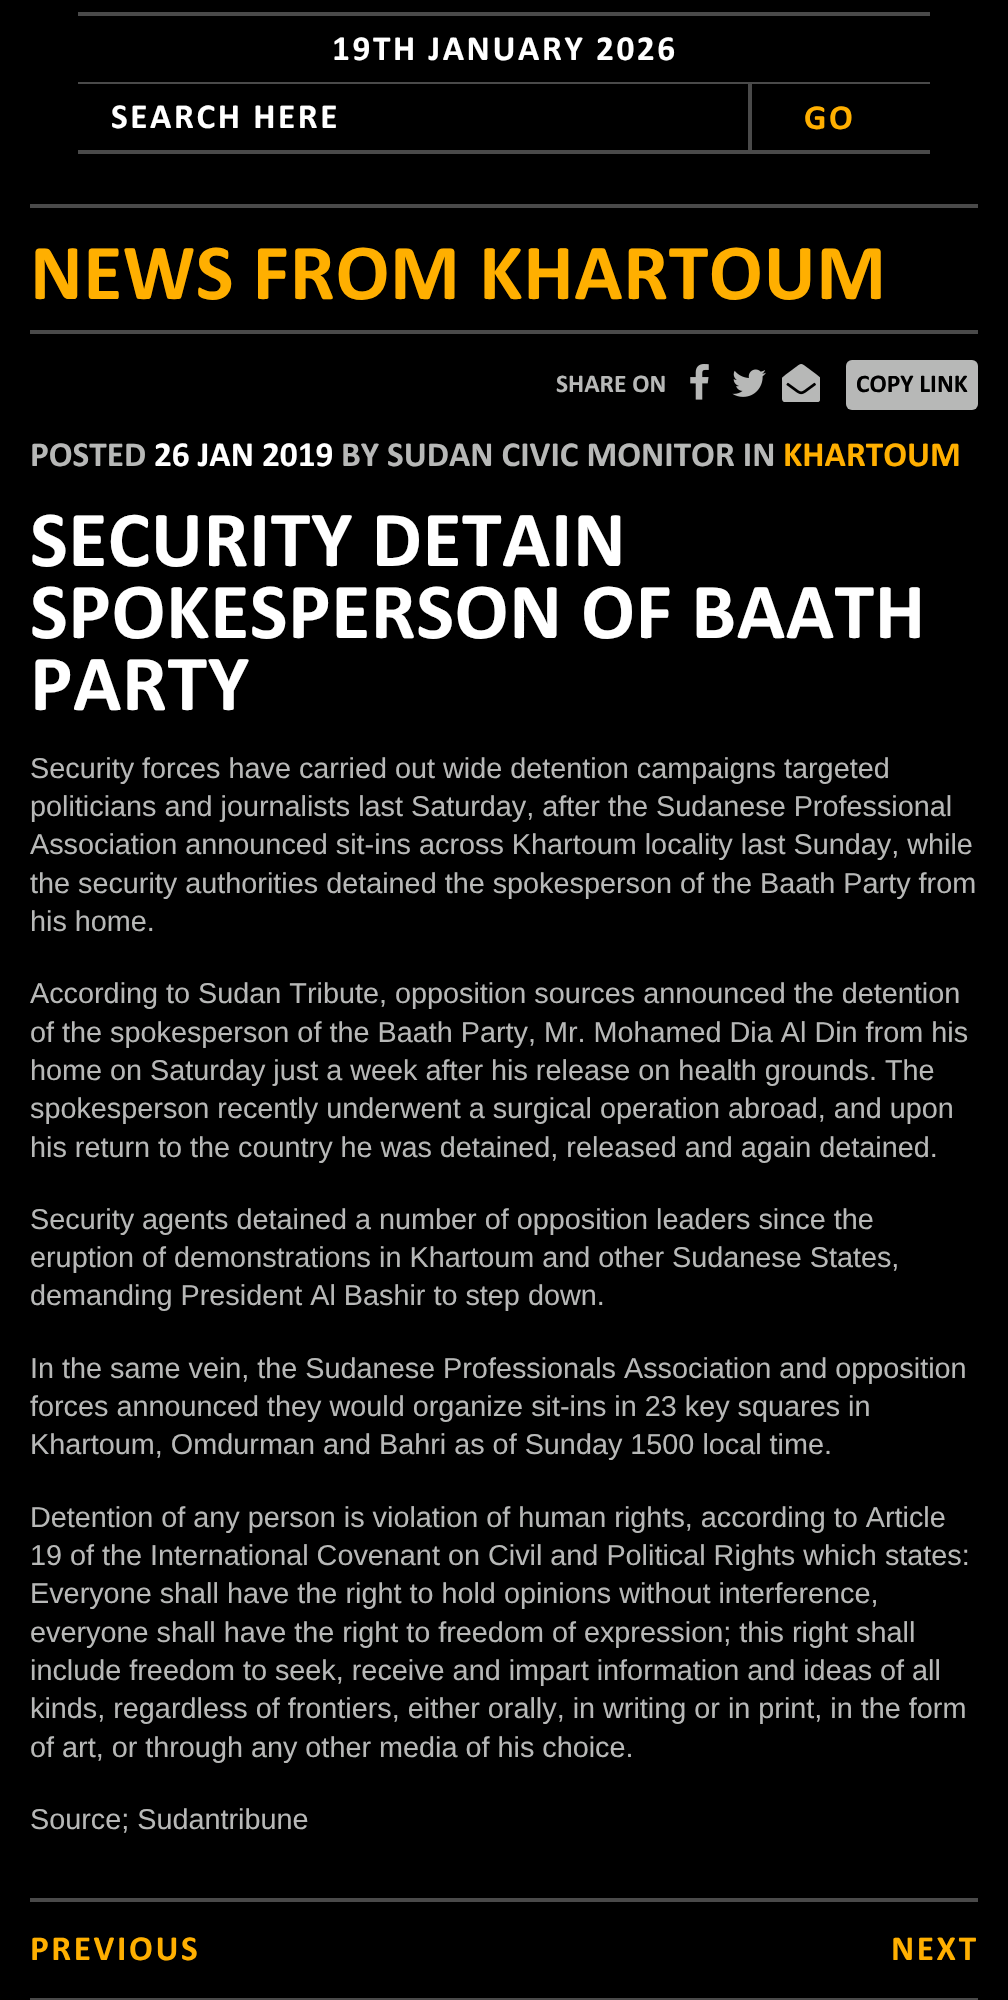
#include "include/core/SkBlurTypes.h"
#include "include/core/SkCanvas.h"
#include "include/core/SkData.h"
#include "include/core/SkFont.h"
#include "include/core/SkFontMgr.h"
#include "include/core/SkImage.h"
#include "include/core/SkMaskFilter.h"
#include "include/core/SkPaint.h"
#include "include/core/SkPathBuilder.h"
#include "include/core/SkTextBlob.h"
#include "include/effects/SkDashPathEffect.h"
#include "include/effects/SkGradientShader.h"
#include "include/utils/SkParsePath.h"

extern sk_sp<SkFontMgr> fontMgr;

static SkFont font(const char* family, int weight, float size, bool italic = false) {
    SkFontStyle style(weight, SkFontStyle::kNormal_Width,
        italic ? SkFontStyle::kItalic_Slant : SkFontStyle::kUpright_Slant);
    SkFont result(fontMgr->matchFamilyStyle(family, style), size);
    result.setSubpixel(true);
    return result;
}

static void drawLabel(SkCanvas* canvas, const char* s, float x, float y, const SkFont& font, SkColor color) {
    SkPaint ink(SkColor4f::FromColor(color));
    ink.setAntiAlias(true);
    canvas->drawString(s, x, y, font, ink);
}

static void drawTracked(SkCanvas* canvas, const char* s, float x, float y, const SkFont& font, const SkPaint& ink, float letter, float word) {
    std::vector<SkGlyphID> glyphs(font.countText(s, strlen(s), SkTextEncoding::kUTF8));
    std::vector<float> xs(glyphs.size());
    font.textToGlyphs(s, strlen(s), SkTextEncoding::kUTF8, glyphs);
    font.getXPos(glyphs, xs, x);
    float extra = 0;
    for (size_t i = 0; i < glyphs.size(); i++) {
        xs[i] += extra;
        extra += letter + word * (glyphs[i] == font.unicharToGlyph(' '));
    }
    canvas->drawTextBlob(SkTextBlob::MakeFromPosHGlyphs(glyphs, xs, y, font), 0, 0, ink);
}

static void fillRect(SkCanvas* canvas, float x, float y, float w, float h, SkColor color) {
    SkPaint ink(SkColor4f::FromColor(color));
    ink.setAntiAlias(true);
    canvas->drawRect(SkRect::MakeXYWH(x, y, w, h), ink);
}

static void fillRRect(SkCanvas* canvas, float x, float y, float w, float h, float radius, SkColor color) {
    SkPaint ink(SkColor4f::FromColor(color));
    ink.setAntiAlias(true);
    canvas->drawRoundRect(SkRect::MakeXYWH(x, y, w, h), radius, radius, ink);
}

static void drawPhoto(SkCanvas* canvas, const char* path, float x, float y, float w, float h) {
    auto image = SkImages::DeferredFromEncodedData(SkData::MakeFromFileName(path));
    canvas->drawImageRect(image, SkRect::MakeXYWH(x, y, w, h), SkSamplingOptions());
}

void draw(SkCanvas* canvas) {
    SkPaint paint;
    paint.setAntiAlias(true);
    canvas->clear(0xFF000000);
    fillRect(canvas, 78, 12, 852, 4, 0xFF4A4A4A);
    SkFont font1 = font("Calibri", 700, 35.25f);
    paint.setColor(0xFFFFFFFF);
    drawTracked(canvas, "19TH JANUARY 2026", 332, 60, font1, paint, 2.6f, 0);
    fillRect(canvas, 78, 82, 852, 2, 0xFF4A4A4A);
    drawTracked(canvas, "SEARCH HERE", 111, 128, font1, paint, 2.6f, 0);
    fillRect(canvas, 748, 84, 4, 66, 0xFF4A4A4A);
    paint.setColor(0xFFFFAF00);
    drawTracked(canvas, "GO", 804, 129, font1, paint, 2.6f, 0);
    fillRect(canvas, 78, 150, 852, 4, 0xFF4A4A4A);
    fillRect(canvas, 30, 204, 948, 4, 0xFF4A4A4A);
    SkFont font2 = font("Calibri", 700, 80);
    drawTracked(canvas, "NEWS FROM KHARTOUM", 30, 299, font2, paint, 0.5f, 0);
    fillRect(canvas, 30, 330, 948, 4, 0xFF4A4A4A);
    SkFont font3 = font("Calibri", 700, 25.5f);
    drawLabel(canvas, "SHARE ON", 556, 392, font3, 0xFFB7B8B7);
    drawPhoto(canvas, "assets/img1.png", 690, 364, 19, 36);
    drawPhoto(canvas, "assets/img2.png", 732, 369, 34, 28);
    drawPhoto(canvas, "assets/img3.png", 782, 364, 38, 38);
    fillRRect(canvas, 846, 360, 132, 50, 6, 0xFFB7B8B7);
    drawLabel(canvas, "COPY LINK", 856, 392, font3, 0xFF000000);
    drawLabel(canvas, "POSTED", 30, 466, font1, 0xFFB7B8B7);
    drawLabel(canvas, "26 JAN 2019", 154, 466, font1, 0xFFFFFFFF);
    drawLabel(canvas, "BY SUDAN CIVIC MONITOR IN", 341, 466, font1, 0xFFB7B8B7);
    drawLabel(canvas, "KHARTOUM", 783, 466, font1, 0xFFFFAF00);
    paint.setColor(0xFFFFFFFF);
    drawTracked(canvas, "SECURITY DETAIN", 30, 566, font2, paint, 0.5f, 0);
    drawTracked(canvas, "SPOKESPERSON OF BAATH", 30, 638, font2, paint, 0.5f, 0);
    drawTracked(canvas, "PARTY", 30, 710, font2, paint, 0.5f, 0);
    SkFont font4 = font("Liberation Sans", 400, 28.8f);
    drawLabel(canvas, "Security forces have carried out wide detention campaigns targeted", 30, 778, font4, 0xFFB7B8B7);
    drawLabel(canvas, "politicians and journalists last Saturday, after the Sudanese Professional", 30, 816, font4, 0xFFB7B8B7);
    drawLabel(canvas, "Association announced sit-ins across Khartoum locality last Sunday, while", 30, 854, font4, 0xFFB7B8B7);
    drawLabel(canvas, "the security authorities detained the spokesperson of the Baath Party from", 30, 893, font4, 0xFFB7B8B7);
    drawLabel(canvas, "his home.", 30, 931, font4, 0xFFB7B8B7);
    drawLabel(canvas, "According to Sudan Tribute, opposition sources announced the detention", 30, 1003, font4, 0xFFB7B8B7);
    drawLabel(canvas, "of the spokesperson of the Baath Party, Mr. Mohamed Dia Al Din from his", 30, 1042, font4, 0xFFB7B8B7);
    drawLabel(canvas, "home on Saturday just a week after his release on health grounds. The", 30, 1080, font4, 0xFFB7B8B7);
    drawLabel(canvas, "spokesperson recently underwent a surgical operation abroad, and upon", 30, 1118, font4, 0xFFB7B8B7);
    drawLabel(canvas, "his return to the country he was detained, released and again detained.", 30, 1157, font4, 0xFFB7B8B7);
    drawLabel(canvas, "Security agents detained a number of opposition leaders since the", 30, 1229, font4, 0xFFB7B8B7);
    drawLabel(canvas, "eruption of demonstrations in Khartoum and other Sudanese States,", 30, 1267, font4, 0xFFB7B8B7);
    drawLabel(canvas, "demanding President Al Bashir to step down.", 30, 1305, font4, 0xFFB7B8B7);
    drawLabel(canvas, "In the same vein, the Sudanese Professionals Association and opposition", 30, 1378, font4, 0xFFB7B8B7);
    drawLabel(canvas, "forces announced they would organize sit-ins in 23 key squares in", 30, 1416, font4, 0xFFB7B8B7);
    drawLabel(canvas, "Khartoum, Omdurman and Bahri as of Sunday 1500 local time.", 30, 1454, font4, 0xFFB7B8B7);
    drawLabel(canvas, "Detention of any person is violation of human rights, according to Article", 30, 1527, font4, 0xFFB7B8B7);
    drawLabel(canvas, "19 of the International Covenant on Civil and Political Rights which states:", 30, 1565, font4, 0xFFB7B8B7);
    drawLabel(canvas, "Everyone shall have the right to hold opinions without interference,", 30, 1603, font4, 0xFFB7B8B7);
    drawLabel(canvas, "everyone shall have the right to freedom of expression; this right shall", 30, 1642, font4, 0xFFB7B8B7);
    drawLabel(canvas, "include freedom to seek, receive and impart information and ideas of all", 30, 1680, font4, 0xFFB7B8B7);
    drawLabel(canvas, "kinds, regardless of frontiers, either orally, in writing or in print, in the form", 30, 1718, font4, 0xFFB7B8B7);
    drawLabel(canvas, "of art, or through any other media of his choice.", 30, 1757, font4, 0xFFB7B8B7);
    drawLabel(canvas, "Source; Sudantribune", 30, 1829, font4, 0xFFB7B8B7);
    fillRect(canvas, 30, 1898, 948, 4, 0xFF4A4A4A);
    paint.setColor(0xFFFFAF00);
    drawTracked(canvas, "PREVIOUS", 30, 1960, font1, paint, 2.6f, 0);
    drawTracked(canvas, "NEXT", 891, 1960, font1, paint, 2.6f, 0);
    fillRect(canvas, 30, 1998, 948, 2, 0xFF4A4A4A);
}
